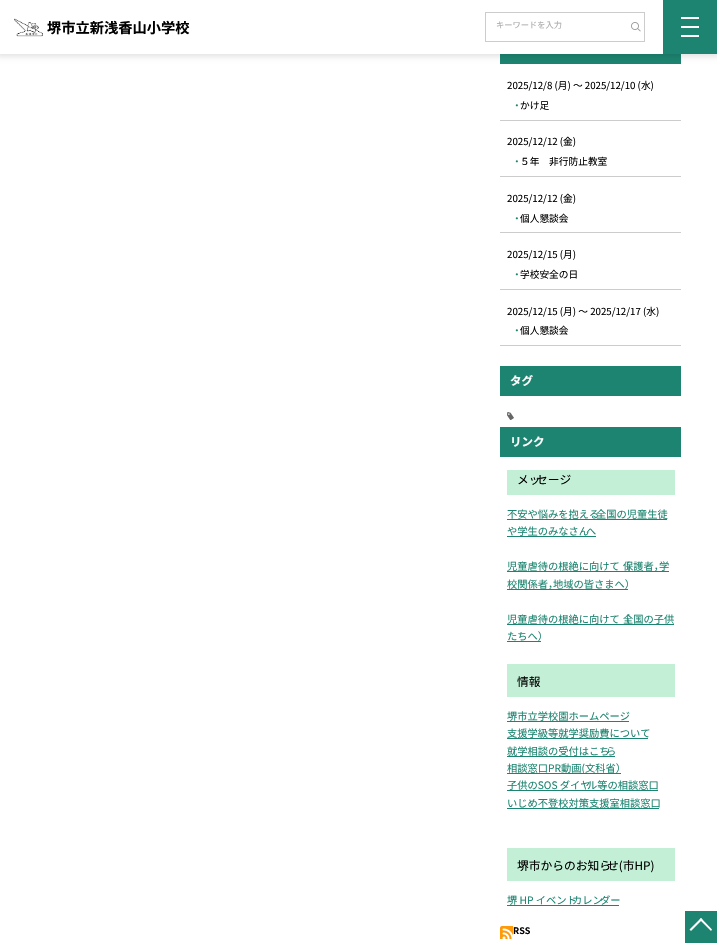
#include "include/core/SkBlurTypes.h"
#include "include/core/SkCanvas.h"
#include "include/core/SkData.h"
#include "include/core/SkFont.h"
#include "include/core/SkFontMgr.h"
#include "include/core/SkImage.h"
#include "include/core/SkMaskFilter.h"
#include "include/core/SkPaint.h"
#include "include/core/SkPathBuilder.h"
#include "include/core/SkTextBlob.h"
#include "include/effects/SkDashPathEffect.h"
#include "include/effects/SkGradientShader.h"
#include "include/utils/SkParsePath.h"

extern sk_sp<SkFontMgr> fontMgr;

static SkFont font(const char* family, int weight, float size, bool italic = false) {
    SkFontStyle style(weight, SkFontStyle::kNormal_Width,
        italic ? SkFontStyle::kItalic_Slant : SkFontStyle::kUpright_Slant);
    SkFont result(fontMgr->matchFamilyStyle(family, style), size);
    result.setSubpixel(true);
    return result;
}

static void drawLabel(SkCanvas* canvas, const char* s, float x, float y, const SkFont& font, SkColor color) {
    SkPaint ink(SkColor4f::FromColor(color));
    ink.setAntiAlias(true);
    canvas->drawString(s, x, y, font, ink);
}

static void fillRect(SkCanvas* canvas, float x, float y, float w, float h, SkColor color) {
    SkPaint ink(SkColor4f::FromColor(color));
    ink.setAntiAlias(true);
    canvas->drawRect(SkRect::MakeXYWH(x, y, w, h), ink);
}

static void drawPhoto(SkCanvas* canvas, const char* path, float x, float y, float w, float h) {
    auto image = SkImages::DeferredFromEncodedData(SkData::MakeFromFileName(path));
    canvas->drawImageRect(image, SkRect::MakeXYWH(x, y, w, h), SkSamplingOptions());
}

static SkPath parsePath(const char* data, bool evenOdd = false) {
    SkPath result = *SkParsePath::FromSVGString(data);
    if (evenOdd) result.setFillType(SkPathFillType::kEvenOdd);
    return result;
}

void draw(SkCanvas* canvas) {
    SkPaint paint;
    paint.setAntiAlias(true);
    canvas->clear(0xFFFFFFFF);
    fillRect(canvas, 500, 54, 181, 10, 0xFF1C8470);
    paint.setColor(0x1A000000);
    paint.setMaskFilter(SkMaskFilter::MakeBlur(kNormal_SkBlurStyle, 2.5f));
    canvas->drawRect(SkRect::MakeXYWH(-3, -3, 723, 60), paint);
    paint.setMaskFilter(nullptr);
    fillRect(canvas, 0, 0, 663, 54, 0xFFFFFFFF);
    drawPhoto(canvas, "assets/img1.png", 14, 18, 29, 19);
    SkFont font1 = font("Noto Sans JP", 700, 14.25f);
    drawLabel(canvas, "堺市立新浅香山小学校", 47, 33, font1, 0xFF000000);
    drawPhoto(canvas, "assets/img2.png", 631, 22, 10, 10);
    paint.setStroke(true);
    paint.setStrokeWidth(1);
    paint.setColor(0xFFCCCCCC);
    canvas->drawRect(SkRect::MakeXYWH(485.5f, 12.5f, 159, 29), paint);
    SkFont font2 = font("Noto Sans JP", 400, 8.25f);
    drawLabel(canvas, "キーワードを入力", 496, 28, font2, 0xFFAAAAAA);
    fillRect(canvas, 663, 0, 54, 54, 0xFF1C8470);
    fillRect(canvas, 681, 17, 18, 2, 0xFFFFFFFF);
    fillRect(canvas, 681, 35, 18, 2, 0xFFFFFFFF);
    fillRect(canvas, 681, 26, 18, 2, 0xFFFFFFFF);
    fillRect(canvas, 500, 120, 181, 1, 0xFFCCCCCC);
    SkFont font3 = font("Noto Sans JP", 400, 9.7f);
    drawLabel(canvas, "2025/12/8 (月) ～ 2025/12/10 (水)", 507, 89, font3, 0xFF000000);
    drawLabel(canvas, "・", 512, 109, font3, 0xFF1C8470);
    drawLabel(canvas, "かけ足", 520, 109, font3, 0xFF000000);
    fillRect(canvas, 500, 176, 181, 1, 0xFFCCCCCC);
    drawLabel(canvas, "2025/12/12 (金)", 507, 145, font3, 0xFF000000);
    drawLabel(canvas, "・", 512, 165, font3, 0xFF1C8470);
    drawLabel(canvas, "５年　非行防止教室", 520, 165, font3, 0xFF000000);
    fillRect(canvas, 500, 232, 181, 1, 0xFFCCCCCC);
    drawLabel(canvas, "2025/12/12 (金)", 507, 202, font3, 0xFF000000);
    drawLabel(canvas, "・", 512, 222, font3, 0xFF1C8470);
    drawLabel(canvas, "個人懇談会", 520, 222, font3, 0xFF000000);
    fillRect(canvas, 500, 289, 181, 1, 0xFFCCCCCC);
    drawLabel(canvas, "2025/12/15 (月)", 507, 258, font3, 0xFF000000);
    drawLabel(canvas, "・", 512, 278, font3, 0xFF1C8470);
    drawLabel(canvas, "学校安全の日", 520, 278, font3, 0xFF000000);
    fillRect(canvas, 500, 345, 181, 1, 0xFFCCCCCC);
    drawLabel(canvas, "2025/12/15 (月) ～ 2025/12/17 (水)", 507, 315, font3, 0xFF000000);
    drawLabel(canvas, "・", 512, 334, font3, 0xFF1C8470);
    drawLabel(canvas, "個人懇談会", 520, 334, font3, 0xFF000000);
    fillRect(canvas, 500, 366, 181, 30, 0xFF1C8470);
    SkFont font4 = font("Noto Sans JP", 700, 11.5f);
    drawLabel(canvas, "タグ", 510, 385, font4, 0xFFFFFFFF);
    drawPhoto(canvas, "assets/img3.png", 507, 412, 7, 8);
    fillRect(canvas, 500, 427, 181, 30, 0xFF1C8470);
    drawLabel(canvas, "リンク", 510, 446, font4, 0xFFFFFFFF);
    fillRect(canvas, 507, 470, 168, 25, 0xFFC2EFD5);
    SkFont font5 = font("Noto Sans JP", 400, 11.75f);
    drawLabel(canvas, "メッ", 517, 484, font5, 0xFF000000);
    drawLabel(canvas, "セージ", 536, 484, font5, 0xFF000000);
    SkFont font6 = font("Noto Sans JP", 400, 10.25f);
    drawLabel(canvas, "不安や悩みを抱える", 507, 518, font6, 0xFF1C8470);
    drawLabel(canvas, "全国の児童生徒", 596, 518, font6, 0xFF1C8470);
    fillRect(canvas, 507, 519, 160, 1, 0xFF1C8470);
    drawLabel(canvas, "や学生のみなさん", 507, 535, font6, 0xFF1C8470);
    drawLabel(canvas, "へ", 586, 535, font6, 0xFF1C8470);
    fillRect(canvas, 507, 536, 89, 1, 0xFF1C8470);
    fillRect(canvas, 507, 571, 162, 1, 0xFF1C8470);
    drawLabel(canvas, "児童虐待の根絶に向けて（", 507, 570, font6, 0xFF1C8470);
    drawLabel(canvas, "保護者，", 623, 570, font6, 0xFF1C8470);
    drawLabel(canvas, "学", 659, 570, font6, 0xFF1C8470);
    fillRect(canvas, 507, 589, 121, 1, 0xFF1C8470);
    drawLabel(canvas, "校関係者，", 507, 588, font6, 0xFF1C8470);
    drawLabel(canvas, "地域の皆さまへ）", 553, 588, font6, 0xFF1C8470);
    drawLabel(canvas, "児童虐待の根絶に向けて（", 507, 623, font6, 0xFF1C8470);
    drawLabel(canvas, "全国の子供", 623, 623, font6, 0xFF1C8470);
    fillRect(canvas, 507, 624, 167, 1, 0xFF1C8470);
    drawLabel(canvas, "たちへ）", 507, 640, font6, 0xFF1C8470);
    fillRect(canvas, 507, 641, 34, 1, 0xFF1C8470);
    fillRect(canvas, 507, 664, 168, 33, 0xFFC2EFD5);
    drawLabel(canvas, "情報", 517, 686, font5, 0xFF000000);
    drawLabel(canvas, "堺市立学校園ホームページ", 507, 720, font6, 0xFF1C8470);
    fillRect(canvas, 507, 721, 122, 1, 0xFF1C8470);
    drawLabel(canvas, "支援学級等就学奨励費について", 507, 737, font6, 0xFF1C8470);
    fillRect(canvas, 507, 738, 141, 1, 0xFF1C8470);
    drawLabel(canvas, "就学相談の受付はこち", 507, 755, font6, 0xFF1C8470);
    drawLabel(canvas, "ら", 606, 755, font6, 0xFF1C8470);
    fillRect(canvas, 507, 756, 108, 1, 0xFF1C8470);
    fillRect(canvas, 507, 773, 114, 1, 0xFF1C8470);
    drawLabel(canvas, "相談窓口PR動画(文科省）", 507, 772, font6, 0xFF1C8470);
    drawLabel(canvas, "子供のSOS ダイヤ", 507, 789, font6, 0xFF1C8470);
    drawLabel(canvas, "ル等の相談窓口", 587, 789, font6, 0xFF1C8470);
    fillRect(canvas, 507, 790, 151, 1, 0xFF1C8470);
    drawLabel(canvas, "いじめ不登校対策支援室相談窓口", 507, 807, font6, 0xFF1C8470);
    fillRect(canvas, 507, 808, 152, 1, 0xFF1C8470);
    fillRect(canvas, 507, 848, 168, 33, 0xFFC2EFD5);
    drawLabel(canvas, "堺市からのお知ら", 517, 870, font5, 0xFF000000);
    drawLabel(canvas, "せ(市HP)", 607, 870, font5, 0xFF000000);
    drawLabel(canvas, "堺 HP イベント", 507, 904, font6, 0xFF1C8470);
    drawLabel(canvas, "カレン", 572, 904, font6, 0xFF1C8470);
    drawLabel(canvas, "ダー", 600, 904, font6, 0xFF1C8470);
    fillRect(canvas, 507, 905, 112, 1, 0xFF1C8470);
    drawPhoto(canvas, "assets/img4.png", 500, 926, 13, 13);
    SkFont font7 = font("Noto Sans JP", 700, 9);
    drawLabel(canvas, "RSS", 513, 934, font7, 0xFF000000);
    fillRect(canvas, 685, 911, 32, 32, 0xFF1C8470);
    paint.setStroke(false);
    paint.setColor(0xFFFFFFFF);
    canvas->drawPath(parsePath("M689.5 929.5L701 918L702.5 919.5L691 931Z"), paint);
    canvas->drawPath(parsePath("M699.5 919.5L701 918L712 929.5L711 931Z"), paint);
}
